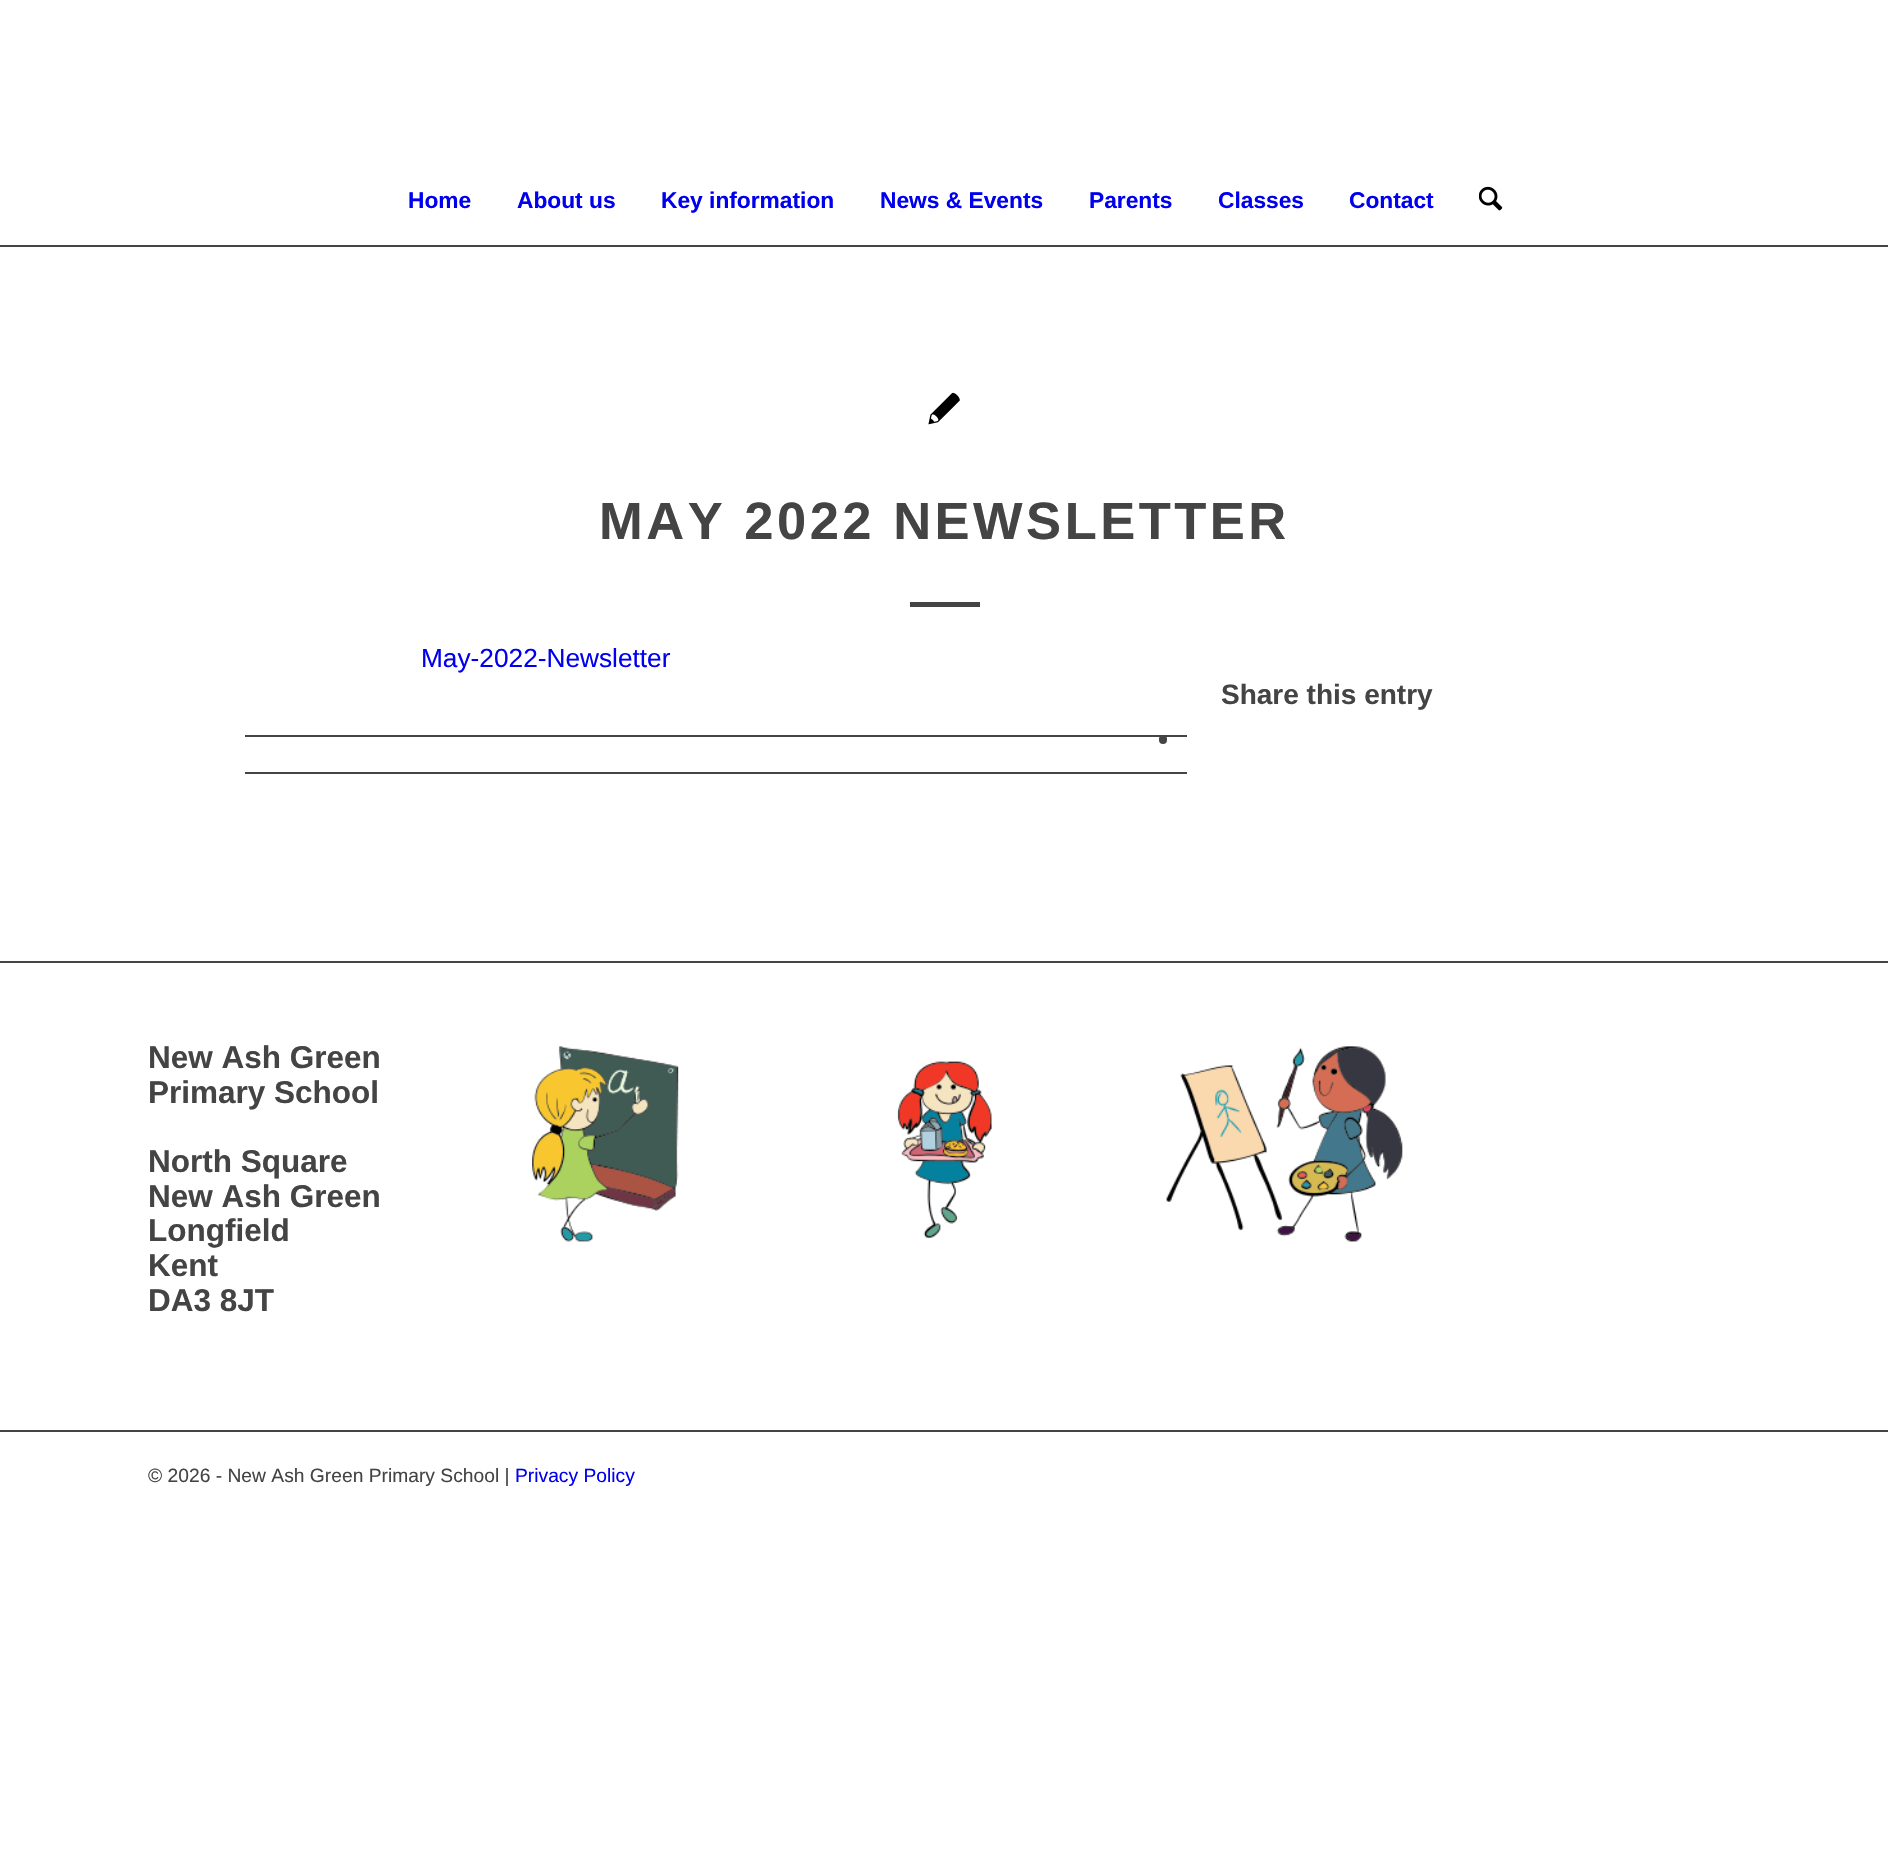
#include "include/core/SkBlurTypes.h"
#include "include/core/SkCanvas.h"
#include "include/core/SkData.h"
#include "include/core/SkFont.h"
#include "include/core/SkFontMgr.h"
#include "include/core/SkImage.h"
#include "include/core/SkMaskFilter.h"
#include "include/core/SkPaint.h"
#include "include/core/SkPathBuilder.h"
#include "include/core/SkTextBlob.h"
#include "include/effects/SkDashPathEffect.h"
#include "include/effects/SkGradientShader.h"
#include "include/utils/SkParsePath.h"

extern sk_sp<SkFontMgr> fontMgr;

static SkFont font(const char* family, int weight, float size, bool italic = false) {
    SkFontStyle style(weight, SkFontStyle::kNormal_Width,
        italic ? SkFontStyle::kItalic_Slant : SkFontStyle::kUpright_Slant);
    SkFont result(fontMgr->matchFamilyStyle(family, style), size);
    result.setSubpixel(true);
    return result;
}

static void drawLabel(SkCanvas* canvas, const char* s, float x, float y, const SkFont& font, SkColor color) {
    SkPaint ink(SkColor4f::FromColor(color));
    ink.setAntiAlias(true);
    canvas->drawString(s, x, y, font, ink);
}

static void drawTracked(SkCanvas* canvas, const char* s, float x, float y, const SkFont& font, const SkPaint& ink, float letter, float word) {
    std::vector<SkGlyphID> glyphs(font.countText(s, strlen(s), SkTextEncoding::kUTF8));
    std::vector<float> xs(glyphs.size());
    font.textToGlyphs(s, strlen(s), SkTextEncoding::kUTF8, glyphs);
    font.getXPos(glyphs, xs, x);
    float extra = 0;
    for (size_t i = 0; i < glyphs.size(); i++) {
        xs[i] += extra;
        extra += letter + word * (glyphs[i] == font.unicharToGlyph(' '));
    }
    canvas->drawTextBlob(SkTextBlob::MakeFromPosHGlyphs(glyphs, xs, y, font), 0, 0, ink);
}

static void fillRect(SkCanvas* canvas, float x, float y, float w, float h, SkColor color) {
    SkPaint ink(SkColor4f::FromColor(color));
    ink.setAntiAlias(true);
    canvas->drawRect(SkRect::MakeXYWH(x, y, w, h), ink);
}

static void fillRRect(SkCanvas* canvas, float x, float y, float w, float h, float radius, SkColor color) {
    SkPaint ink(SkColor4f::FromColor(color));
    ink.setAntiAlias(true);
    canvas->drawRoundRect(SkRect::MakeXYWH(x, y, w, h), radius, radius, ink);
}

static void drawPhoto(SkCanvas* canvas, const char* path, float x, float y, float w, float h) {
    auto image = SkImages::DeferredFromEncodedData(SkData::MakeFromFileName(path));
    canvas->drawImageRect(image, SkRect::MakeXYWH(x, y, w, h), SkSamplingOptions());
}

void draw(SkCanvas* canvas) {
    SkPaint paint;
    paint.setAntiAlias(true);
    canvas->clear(0xFFFFFFFF);
    SkFont font1 = font("Liberation Sans", 700, 22.75f);
    drawLabel(canvas, "Home", 408, 208, font1, 0xFF0000EE);
    drawLabel(canvas, "About us", 517, 208, font1, 0xFF0000EE);
    drawLabel(canvas, "Key information", 661, 208, font1, 0xFF0000EE);
    drawLabel(canvas, "News & Events", 880, 208, font1, 0xFF0000EE);
    drawLabel(canvas, "Parents", 1089, 208, font1, 0xFF0000EE);
    drawLabel(canvas, "Classes", 1218, 208, font1, 0xFF0000EE);
    drawLabel(canvas, "Contact", 1349, 208, font1, 0xFF0000EE);
    drawPhoto(canvas, "assets/img1.png", 1479, 186, 24, 25);
    fillRect(canvas, 0, 245, 1888, 2, 0xFF444444);
    drawPhoto(canvas, "assets/img2.png", 928, 392, 32, 33);
    SkFont font2 = font("Liberation Sans", 700, 52.5f);
    paint.setColor(0xFF444444);
    drawTracked(canvas, "MAY 2022 NEWSLETTER", 599, 539, font2, paint, 3.5f, 0);
    fillRect(canvas, 910, 602, 70, 5, 0xFF444444);
    SkFont font3 = font("Liberation Sans", 400, 26.25f);
    drawLabel(canvas, "May-2022-Newsletter", 421, 667, font3, 0xFF0000EE);
    SkFont font4 = font("Liberation Sans", 700, 28);
    drawLabel(canvas, "Share this entry", 1221, 704, font4, 0xFF444444);
    fillRRect(canvas, 1159, 735, 8, 9, 4, 0xFF444444);
    fillRect(canvas, 245, 735, 942, 2, 0xFF444444);
    fillRect(canvas, 245, 772, 942, 2, 0xFF444444);
    fillRect(canvas, 0, 961, 1888, 2, 0xFF444444);
    SkFont font5 = font("Liberation Sans", 700, 31.5f);
    drawLabel(canvas, "New Ash Green", 148, 1068, font5, 0xFF444444);
    drawLabel(canvas, "Primary School", 148, 1103, font5, 0xFF444444);
    drawLabel(canvas, "North Square", 148, 1172, font5, 0xFF444444);
    drawLabel(canvas, "New Ash Green", 148, 1207, font5, 0xFF444444);
    drawLabel(canvas, "Longfield", 148, 1241, font5, 0xFF444444);
    drawLabel(canvas, "Kent", 148, 1276, font5, 0xFF444444);
    drawLabel(canvas, "DA3 8JT", 148, 1311, font5, 0xFF444444);
    drawPhoto(canvas, "assets/img3.png", 532, 1046, 147, 196);
    drawPhoto(canvas, "assets/img4.png", 897, 1061, 95, 178);
    drawPhoto(canvas, "assets/img5.png", 1166, 1046, 237, 196);
    fillRect(canvas, 0, 1430, 1888, 2, 0xFF444444);
    SkFont font6 = font("Liberation Sans", 400, 19.25f);
    drawLabel(canvas, "© 2026 - New Ash Green Primary School |", 148, 1482, font6, 0xFF444444);
    drawLabel(canvas, "Privacy Policy", 515, 1482, font6, 0xFF0000EE);
}
